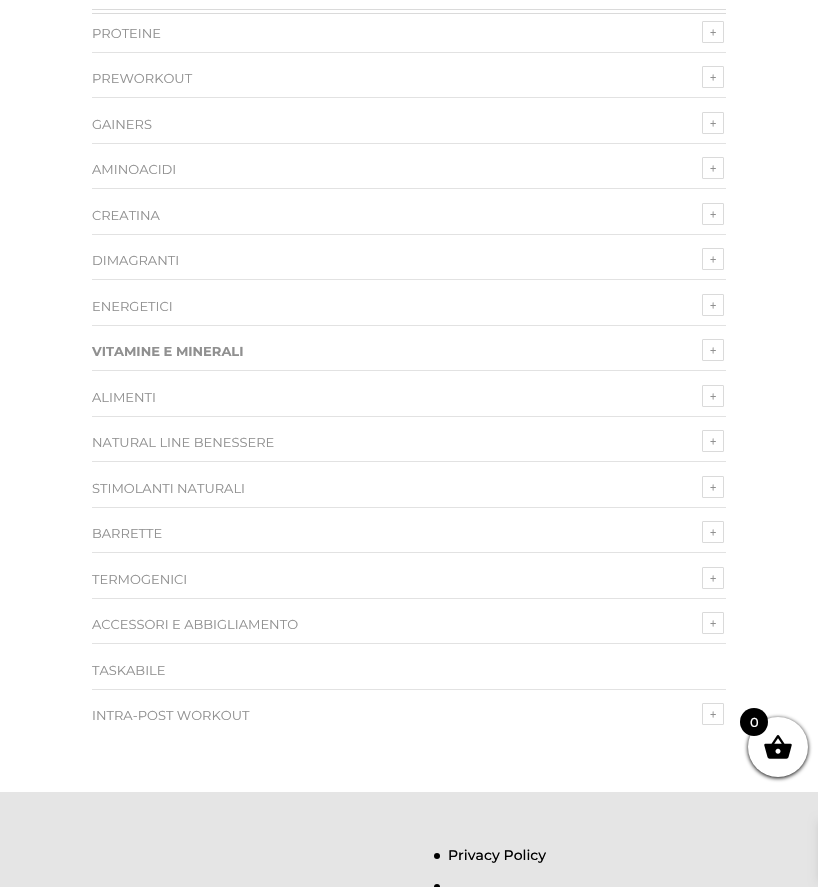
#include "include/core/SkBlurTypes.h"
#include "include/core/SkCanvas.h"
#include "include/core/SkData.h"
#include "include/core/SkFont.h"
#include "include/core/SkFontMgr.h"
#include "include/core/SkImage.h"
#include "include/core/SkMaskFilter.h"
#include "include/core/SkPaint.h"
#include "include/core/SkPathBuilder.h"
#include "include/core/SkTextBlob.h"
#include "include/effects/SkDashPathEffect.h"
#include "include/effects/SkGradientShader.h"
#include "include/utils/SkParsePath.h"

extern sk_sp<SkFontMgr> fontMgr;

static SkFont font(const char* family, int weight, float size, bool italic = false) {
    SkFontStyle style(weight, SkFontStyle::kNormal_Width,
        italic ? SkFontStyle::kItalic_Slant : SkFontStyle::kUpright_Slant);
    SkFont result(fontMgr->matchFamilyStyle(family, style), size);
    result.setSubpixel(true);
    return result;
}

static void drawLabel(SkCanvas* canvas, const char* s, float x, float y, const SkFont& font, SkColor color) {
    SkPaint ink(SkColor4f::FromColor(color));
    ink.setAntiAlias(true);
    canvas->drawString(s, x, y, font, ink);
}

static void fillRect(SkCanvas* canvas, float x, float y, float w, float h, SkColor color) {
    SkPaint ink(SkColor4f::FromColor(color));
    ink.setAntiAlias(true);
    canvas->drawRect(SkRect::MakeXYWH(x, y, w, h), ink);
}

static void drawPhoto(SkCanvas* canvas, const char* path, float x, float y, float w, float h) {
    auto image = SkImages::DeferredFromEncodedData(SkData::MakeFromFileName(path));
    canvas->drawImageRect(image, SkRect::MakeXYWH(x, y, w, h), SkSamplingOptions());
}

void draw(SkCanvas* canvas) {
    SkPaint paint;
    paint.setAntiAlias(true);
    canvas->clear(0xFFFFFFFF);
    fillRect(canvas, 92, 9, 634, 1, 0xFFDADADA);
    fillRect(canvas, 92, 13, 634, 1, 0xFFDADADA);
    fillRect(canvas, 92, 52, 634, 1, 0xFFE2E2E2);
    SkFont font1 = font("Montserrat", 400, 13);
    drawLabel(canvas, "PROTEINE", 92, 38, font1, 0xFF909090);
    drawPhoto(canvas, "assets/img1.png", 702, 21, 22, 22);
    fillRect(canvas, 92, 97, 634, 1, 0xFFE2E2E2);
    drawLabel(canvas, "PREWORKOUT", 92, 83, font1, 0xFF909090);
    drawPhoto(canvas, "assets/img1.png", 702, 66, 22, 22);
    fillRect(canvas, 92, 143, 634, 1, 0xFFE2E2E2);
    drawLabel(canvas, "GAINERS", 92, 129, font1, 0xFF909090);
    drawPhoto(canvas, "assets/img1.png", 702, 112, 22, 22);
    fillRect(canvas, 92, 188, 634, 1, 0xFFE2E2E2);
    drawLabel(canvas, "AMINOACIDI", 92, 174, font1, 0xFF909090);
    drawPhoto(canvas, "assets/img1.png", 702, 157, 22, 22);
    fillRect(canvas, 92, 234, 634, 1, 0xFFE2E2E2);
    drawLabel(canvas, "CREATINA", 92, 220, font1, 0xFF909090);
    drawPhoto(canvas, "assets/img1.png", 702, 203, 22, 22);
    fillRect(canvas, 92, 279, 634, 1, 0xFFE2E2E2);
    drawLabel(canvas, "DIMAGRANTI", 92, 265, font1, 0xFF909090);
    drawPhoto(canvas, "assets/img1.png", 702, 248, 22, 22);
    fillRect(canvas, 92, 325, 634, 1, 0xFFE2E2E2);
    drawLabel(canvas, "ENERGETICI", 92, 311, font1, 0xFF909090);
    drawPhoto(canvas, "assets/img1.png", 702, 294, 22, 22);
    fillRect(canvas, 92, 370, 634, 1, 0xFFE2E2E2);
    SkFont font2 = font("Montserrat", 700, 13);
    drawLabel(canvas, "VITAMINE E MINERALI", 92, 356, font2, 0xFF909090);
    drawPhoto(canvas, "assets/img1.png", 702, 339, 22, 22);
    fillRect(canvas, 92, 416, 634, 1, 0xFFE2E2E2);
    drawLabel(canvas, "ALIMENTI", 92, 402, font1, 0xFF909090);
    drawPhoto(canvas, "assets/img1.png", 702, 385, 22, 22);
    fillRect(canvas, 92, 461, 634, 1, 0xFFE2E2E2);
    drawLabel(canvas, "NATURAL LINE BENESSERE", 92, 447, font1, 0xFF909090);
    drawPhoto(canvas, "assets/img1.png", 702, 430, 22, 22);
    fillRect(canvas, 92, 507, 634, 1, 0xFFE2E2E2);
    drawLabel(canvas, "STIMOLANTI NATURALI", 92, 493, font1, 0xFF909090);
    drawPhoto(canvas, "assets/img1.png", 702, 476, 22, 22);
    fillRect(canvas, 92, 552, 634, 1, 0xFFE2E2E2);
    drawLabel(canvas, "BARRETTE", 92, 538, font1, 0xFF909090);
    drawPhoto(canvas, "assets/img1.png", 702, 521, 22, 22);
    fillRect(canvas, 92, 598, 634, 1, 0xFFE2E2E2);
    drawLabel(canvas, "TERMOGENICI", 92, 584, font1, 0xFF909090);
    drawPhoto(canvas, "assets/img1.png", 702, 567, 22, 22);
    fillRect(canvas, 92, 643, 634, 1, 0xFFE2E2E2);
    drawLabel(canvas, "ACCESSORI E ABBIGLIAMENTO", 92, 629, font1, 0xFF909090);
    drawPhoto(canvas, "assets/img1.png", 702, 612, 22, 22);
    fillRect(canvas, 92, 689, 634, 1, 0xFFE2E2E2);
    drawLabel(canvas, "TASKABILE", 92, 675, font1, 0xFF909090);
    drawLabel(canvas, "INTRA-POST WORKOUT", 92, 720, font1, 0xFF909090);
    drawPhoto(canvas, "assets/img1.png", 702, 703, 22, 22);
    fillRect(canvas, 0, 792, 818, 95, 0xFFE5E5E5);
    paint.setColor(0xFF000000);
    canvas->drawCircle(437, 856, 3, paint);
    SkFont font3 = font("Montserrat", 500, 14);
    drawLabel(canvas, "Privacy Policy", 448, 860, font3, 0xFF000000);
    canvas->drawCircle(437, 887, 3, paint);
    paint.setMaskFilter(SkMaskFilter::MakeBlur(kNormal_SkBlurStyle, 2));
    canvas->drawRoundRect(SkRect::MakeXYWH(748, 718, 60, 60), 30, 30, paint);
    paint.setMaskFilter(nullptr);
    paint.setColor(0xFFFFFFFF);
    canvas->drawCircle(778, 747, 30, paint);
    drawPhoto(canvas, "assets/img2.png", 764, 735, 28, 24);
    paint.setColor(0xFF000000);
    canvas->drawCircle(754, 722, 14, paint);
    SkFont font4 = font("Montserrat", 500, 13);
    drawLabel(canvas, "0", 750, 727, font4, 0xFFFFFFFF);
    paint.setColor(0x1A000000);
    paint.setMaskFilter(SkMaskFilter::MakeBlur(kNormal_SkBlurStyle, 5));
    canvas->drawRect(SkRect::MakeXYWH(818, 821, 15, 61), paint);
    paint.setMaskFilter(nullptr);
}
